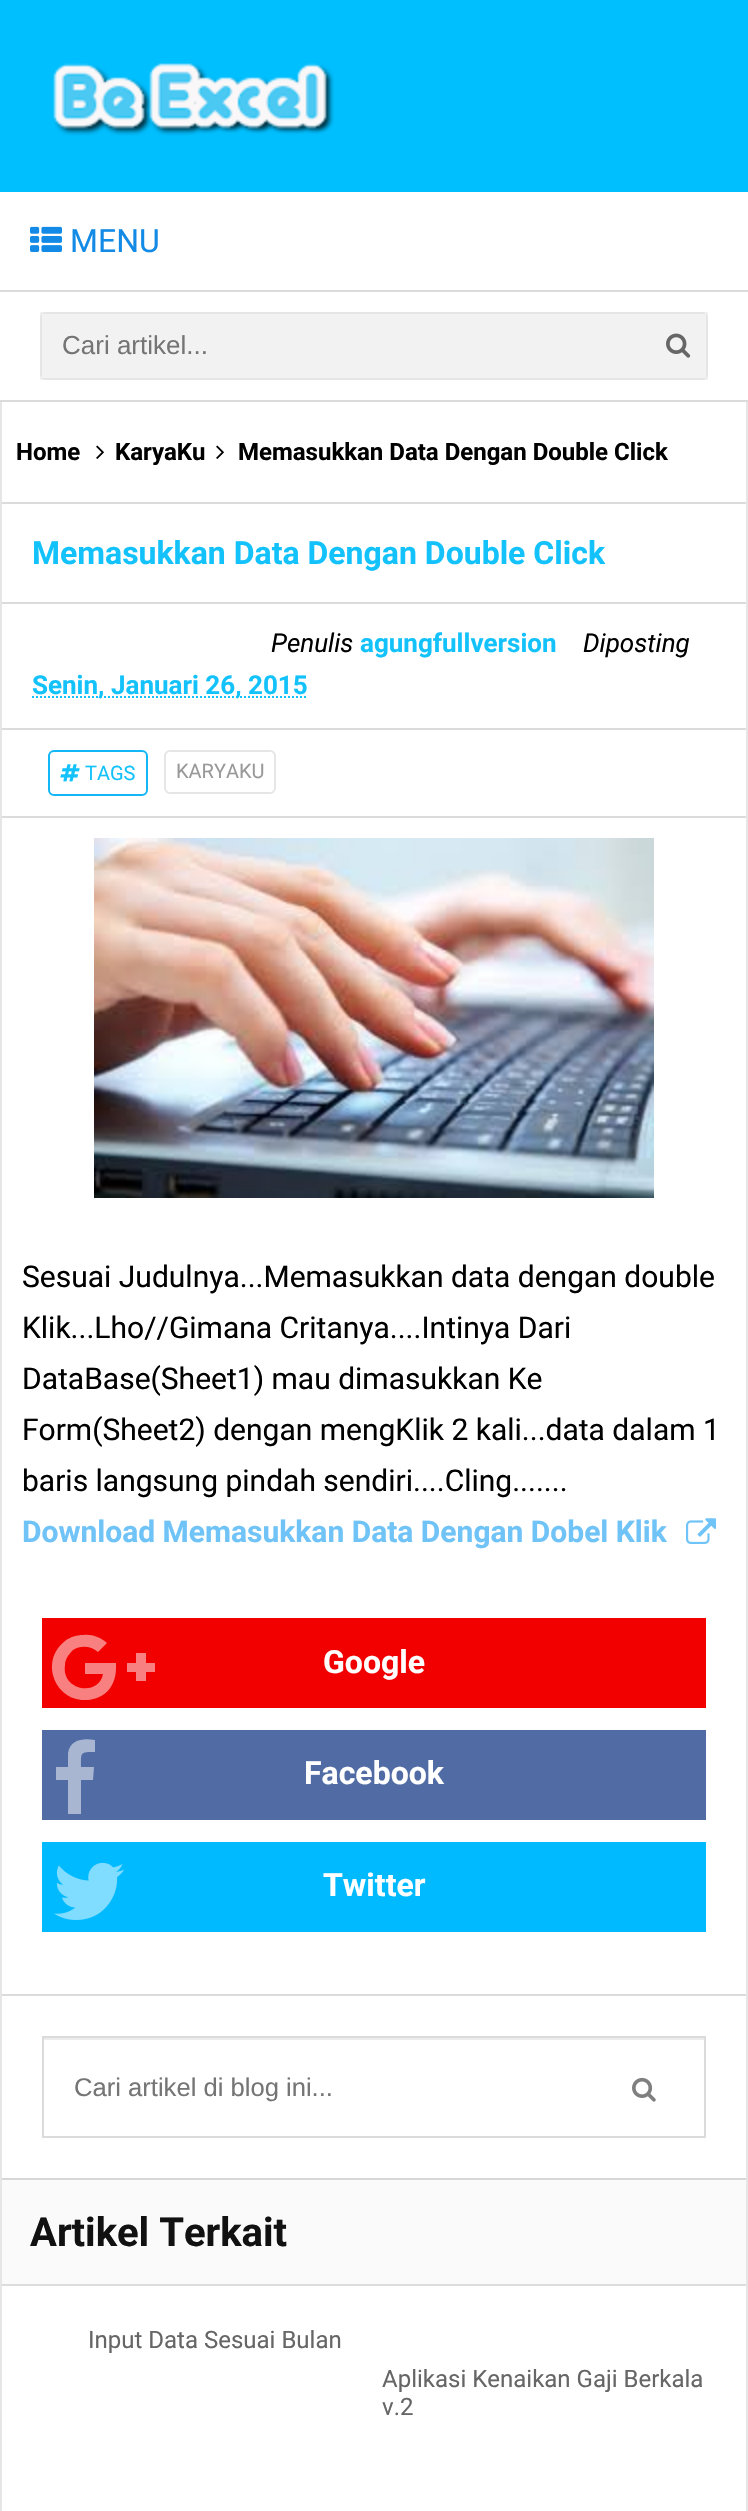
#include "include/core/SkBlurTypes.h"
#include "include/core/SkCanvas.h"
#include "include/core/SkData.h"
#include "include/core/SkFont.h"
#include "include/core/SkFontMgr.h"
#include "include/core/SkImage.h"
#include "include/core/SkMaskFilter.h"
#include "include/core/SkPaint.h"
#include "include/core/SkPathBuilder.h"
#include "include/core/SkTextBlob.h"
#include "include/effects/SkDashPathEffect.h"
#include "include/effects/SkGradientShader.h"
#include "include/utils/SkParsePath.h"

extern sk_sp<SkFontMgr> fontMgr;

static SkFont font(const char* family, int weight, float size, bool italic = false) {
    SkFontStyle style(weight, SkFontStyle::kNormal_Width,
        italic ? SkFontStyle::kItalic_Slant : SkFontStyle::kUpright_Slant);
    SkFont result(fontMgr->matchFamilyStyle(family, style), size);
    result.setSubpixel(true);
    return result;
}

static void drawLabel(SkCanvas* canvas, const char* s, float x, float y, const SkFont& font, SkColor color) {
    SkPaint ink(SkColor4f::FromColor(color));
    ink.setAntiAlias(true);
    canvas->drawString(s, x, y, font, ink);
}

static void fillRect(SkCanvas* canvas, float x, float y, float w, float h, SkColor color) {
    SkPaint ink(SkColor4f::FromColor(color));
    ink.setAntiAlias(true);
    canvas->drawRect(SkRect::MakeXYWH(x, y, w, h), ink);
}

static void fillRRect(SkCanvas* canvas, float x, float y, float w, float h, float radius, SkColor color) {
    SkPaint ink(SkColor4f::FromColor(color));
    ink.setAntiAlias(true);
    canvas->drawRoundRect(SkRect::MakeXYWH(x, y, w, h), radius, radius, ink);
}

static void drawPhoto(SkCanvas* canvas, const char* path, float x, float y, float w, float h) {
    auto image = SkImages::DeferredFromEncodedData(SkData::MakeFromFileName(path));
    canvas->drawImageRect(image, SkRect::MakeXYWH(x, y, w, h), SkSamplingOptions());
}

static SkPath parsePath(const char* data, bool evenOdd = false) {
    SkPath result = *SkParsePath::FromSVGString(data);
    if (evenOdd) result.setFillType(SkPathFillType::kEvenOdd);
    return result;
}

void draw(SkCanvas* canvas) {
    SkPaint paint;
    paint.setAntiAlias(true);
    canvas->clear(0xFFFFFFFF);
    fillRect(canvas, 0, 0, 748, 192, 0xFF00BFFF);
    drawPhoto(canvas, "assets/img1.png", 53, 63, 281, 73);
    fillRect(canvas, 0, 290, 748, 2, 0xFFDBDBDB);
    drawPhoto(canvas, "assets/img2.png", 30, 226, 32, 26);
    SkFont font1 = font("Roboto", 400, 32);
    drawLabel(canvas, "MENU", 70, 252, font1, 0xFF138BE6);
    fillRect(canvas, 0, 400, 748, 2, 0xFFDBDBDB);
    fillRRect(canvas, 40, 312, 668, 68, 6, 0xFFF2F2F2);
    paint.setStroke(true);
    paint.setStrokeWidth(2);
    paint.setColor(0x0D000000);
    canvas->drawRect(SkRect::MakeXYWH(41, 313, 666, 66), paint);
    SkFont font2 = font("Liberation Sans", 400, 26);
    drawLabel(canvas, "Cari artikel...", 62, 354, font2, 0xFF757575);
    drawPhoto(canvas, "assets/img3.png", 666, 333, 25, 25);
    fillRect(canvas, 746, 402, 2, 2109, 0xFFE6E6E6);
    fillRect(canvas, 0, 402, 2, 2109, 0xFFE6E6E6);
    fillRect(canvas, 2, 502, 744, 2, 0xFFDBDBDB);
    SkFont font3 = font("Roboto", 700, 24);
    drawLabel(canvas, "Home", 16, 460, font3, 0xFF000000);
    drawPhoto(canvas, "assets/img4.png", 96, 445, 8, 14);
    drawLabel(canvas, "KaryaKu", 115, 460, font3, 0xFF000000);
    drawPhoto(canvas, "assets/img4.png", 216, 445, 8, 14);
    drawLabel(canvas, "Memasukkan Data Dengan Double Click", 238, 460, font3, 0xFF000000);
    SkFont font4 = font("Roboto", 700, 32);
    drawLabel(canvas, "Memasukkan Data Dengan Double Click", 32, 564, font4, 0xFF14C2FB);
    fillRect(canvas, 2, 602, 744, 2, 0xFFDBDBDB);
    fillRect(canvas, 2, 728, 744, 2, 0xFFDBDBDB);
    SkFont font5 = font("Roboto", 400, 26, true);
    drawLabel(canvas, "Penulis", 271, 652, font5, 0xFF000000);
    SkFont font6 = font("Roboto", 700, 26);
    drawLabel(canvas, "agungfullversion", 360, 652, font6, 0xFF14C2FB);
    drawLabel(canvas, "Diposting", 583, 652, font5, 0xFF000000);
    paint.setColor(0xFF14C2FB);
    paint.setPathEffect(SkDashPathEffect::Make({{2, 2}}, 0));
    canvas->drawPath(parsePath("M32 697H307.5"), paint);
    paint.setPathEffect(nullptr);
    drawLabel(canvas, "Senin, Januari 26, 2015", 32, 694, font6, 0xFF14C2FB);
    fillRect(canvas, 2, 816, 744, 2, 0xFFDBDBDB);
    paint.setColor(0xFF14B7F6);
    canvas->drawRoundRect(SkRect::MakeXYWH(49, 751, 98, 44), 5, 5, paint);
    drawPhoto(canvas, "assets/img5.png", 60, 764, 20, 18);
    SkFont font7 = font("Roboto", 400, 20);
    drawLabel(canvas, "TAGS", 85, 780, font7, 0xFF14C2FB);
    paint.setColor(0xFFE6E6E6);
    canvas->drawRoundRect(SkRect::MakeXYWH(165, 751, 110, 42), 5, 5, paint);
    drawLabel(canvas, "KARYAKU", 176, 778, font7, 0xFF999999);
    drawPhoto(canvas, "assets/img6.png", 94, 838, 560, 360);
    SkFont font8 = font("Roboto", 400, 30);
    drawLabel(canvas, "Sesuai Judulnya...Memasukkan data dengan double", 22, 1287, font8, 0xFF000000);
    drawLabel(canvas, "Klik...Lho//Gimana Critanya....Intinya Dari", 22, 1338, font8, 0xFF000000);
    drawLabel(canvas, "DataBase(Sheet1) mau dimasukkan Ke", 22, 1389, font8, 0xFF000000);
    drawLabel(canvas, "Form(Sheet2) dengan mengKlik 2 kali...data dalam 1", 22, 1440, font8, 0xFF000000);
    drawLabel(canvas, "baris langsung pindah sendiri....Cling.......", 22, 1491, font8, 0xFF000000);
    SkFont font9 = font("Roboto", 700, 30);
    drawLabel(canvas, "Download Memasukkan Data Dengan Dobel Klik", 22, 1542, font9, 0xFF6FC3F7);
    drawPhoto(canvas, "assets/img7.png", 686, 1518, 30, 26);
    fillRect(canvas, 42, 1618, 664, 90, 0xFFF20000);
    paint.setStroke(false);
    paint.setColor(0xFFF98080);
    canvas->drawPath(parsePath("M116 1668C116 1686 105 1699 87 1700C55 1702 39 1661 65 1641C70 1637 77 1635 83 1635C92 1634 100 1637 107 1643L98 1652C91 1646 81 1645 73 1650C69 1654 65 1659 65 1665C61 1691 99 1697 103 1674H85V1663H116ZM155 1663V1672H146V1681H136V1672H127V1663H136V1653H146V1663Z"), paint);
    drawLabel(canvas, "Google", 323, 1673, font4, 0xFFFFFFFF);
    fillRect(canvas, 42, 1730, 664, 90, 0xFF516CA4);
    paint.setColor(0xFFA8B6D2);
    canvas->drawPath(parsePath("M95 1740V1752C80 1752 81 1752 81 1767H94L93 1780H81V1814H68V1780H56V1767H68V1753C70 1739 84 1738 95 1740Z"), paint);
    drawLabel(canvas, "Facebook", 304, 1784, font4, 0xFFFFFFFF);
    fillRect(canvas, 42, 1842, 664, 90, 0xFF00BAFF);
    drawPhoto(canvas, "assets/img8.png", 54, 1862, 71, 58);
    drawLabel(canvas, "Twitter", 323, 1896, font4, 0xFFFFFFFF);
    fillRect(canvas, 2, 1994, 744, 2, 0xFFDBDBDB);
    fillRect(canvas, 44, 2038, 660, 2, 0xFFECECEC);
    paint.setStroke(true);
    paint.setColor(0xFFDBDBDB);
    canvas->drawRect(SkRect::MakeXYWH(43, 2037, 662, 100), paint);
    SkFont font10 = font("Liberation Sans", 400, 25.6f);
    drawLabel(canvas, "Cari artikel di blog ini...", 74, 2096, font10, 0xFF757575);
    drawPhoto(canvas, "assets/img9.png", 632, 2077, 24, 25);
    fillRect(canvas, 2, 2180, 744, 104, 0xFFFAFAFA);
    fillRect(canvas, 2, 2178, 744, 2, 0xFFD7D7D7);
    fillRect(canvas, 2, 2284, 744, 2, 0xFFDCDCDC);
    SkFont font11 = font("Roboto", 700, 40);
    drawLabel(canvas, "Artikel Terkait", 30, 2246, font11, 0xFF111111);
    SkFont font12 = font("Roboto", 400, 24);
    drawLabel(canvas, "Input Data Sesuai Bulan", 88, 2348, font12, 0xFF666666);
    drawLabel(canvas, "Aplikasi Kenaikan Gaji Berkala", 382, 2387, font12, 0xFF666666);
    drawLabel(canvas, "v.2", 382, 2415, font12, 0xFF666666);
}
